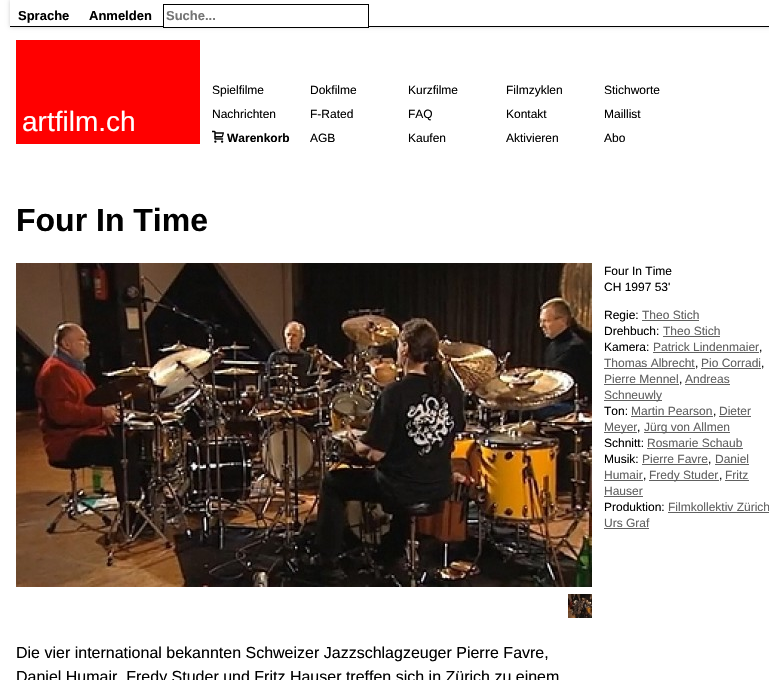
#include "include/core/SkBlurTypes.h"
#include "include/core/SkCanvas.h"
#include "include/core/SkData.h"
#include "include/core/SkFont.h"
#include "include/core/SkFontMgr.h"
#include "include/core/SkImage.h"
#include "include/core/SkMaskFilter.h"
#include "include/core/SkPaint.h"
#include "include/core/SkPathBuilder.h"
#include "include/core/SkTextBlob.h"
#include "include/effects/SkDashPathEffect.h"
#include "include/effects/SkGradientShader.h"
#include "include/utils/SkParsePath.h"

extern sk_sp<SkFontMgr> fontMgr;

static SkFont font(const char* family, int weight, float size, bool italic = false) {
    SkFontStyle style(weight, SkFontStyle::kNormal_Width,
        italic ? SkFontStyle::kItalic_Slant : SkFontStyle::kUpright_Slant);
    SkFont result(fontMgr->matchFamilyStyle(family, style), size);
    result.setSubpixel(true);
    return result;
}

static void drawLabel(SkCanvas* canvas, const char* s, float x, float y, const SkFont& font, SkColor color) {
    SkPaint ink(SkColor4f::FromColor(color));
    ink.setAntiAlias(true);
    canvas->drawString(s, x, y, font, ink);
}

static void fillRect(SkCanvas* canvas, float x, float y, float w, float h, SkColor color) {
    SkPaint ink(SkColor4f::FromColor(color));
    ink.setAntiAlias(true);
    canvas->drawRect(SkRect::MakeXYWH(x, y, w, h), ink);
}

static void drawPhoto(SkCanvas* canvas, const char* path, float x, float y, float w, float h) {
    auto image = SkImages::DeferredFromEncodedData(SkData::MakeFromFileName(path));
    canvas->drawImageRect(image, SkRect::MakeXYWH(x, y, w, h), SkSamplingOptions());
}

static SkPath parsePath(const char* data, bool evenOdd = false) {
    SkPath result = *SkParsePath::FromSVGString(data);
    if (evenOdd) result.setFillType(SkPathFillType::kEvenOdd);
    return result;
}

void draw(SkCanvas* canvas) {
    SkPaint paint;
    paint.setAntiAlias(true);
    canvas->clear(0xFFFFFFFF);
    canvas->save();
    canvas->clipPath(parsePath("M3 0H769V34H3ZM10 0H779V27H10Z", true), true);
    paint.setColor(0x33000000);
    paint.setMaskFilter(SkMaskFilter::MakeBlur(kNormal_SkBlurStyle, 2));
    canvas->drawRect(SkRect::MakeXYWH(10, 0, 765, 27), paint);
    paint.setMaskFilter(nullptr);
    canvas->restore();
    fillRect(canvas, 10, 26, 759, 1, 0xFF000000);
    SkFont font1 = font("Liberation Sans", 700, 13);
    drawLabel(canvas, "Sprache", 18, 20, font1, 0xFF000000);
    drawLabel(canvas, "Anmelden", 89, 20, font1, 0xFF000000);
    fillRect(canvas, 164, 26, 204, 1, 0xFFFFFFFF);
    paint.setStroke(true);
    paint.setStrokeWidth(1);
    paint.setColor(0xFF000000);
    canvas->drawRect(SkRect::MakeXYWH(163.5f, 4.5f, 205, 23), paint);
    drawLabel(canvas, "Suche...", 166, 20, font1, 0xFF757575);
    fillRect(canvas, 16, 40, 184, 104, 0xFFFF0000);
    SkFont font2 = font("Liberation Sans", 400, 28);
    drawLabel(canvas, "artfilm.ch", 22, 131, font2, 0xFFFFFFFF);
    SkFont font3 = font("Liberation Sans", 400, 12);
    drawLabel(canvas, "Spielfilme", 212, 94, font3, 0xFF000000);
    drawLabel(canvas, "Dokfilme", 310, 94, font3, 0xFF000000);
    drawLabel(canvas, "Kurzfilme", 408, 94, font3, 0xFF000000);
    drawLabel(canvas, "Filmzyklen", 506, 94, font3, 0xFF000000);
    drawLabel(canvas, "Stichworte", 604, 94, font3, 0xFF000000);
    drawLabel(canvas, "Nachrichten", 212, 118, font3, 0xFF000000);
    drawLabel(canvas, "F-Rated", 310, 118, font3, 0xFF000000);
    drawLabel(canvas, "FAQ", 408, 118, font3, 0xFF000000);
    drawLabel(canvas, "Kontakt", 506, 118, font3, 0xFF000000);
    drawLabel(canvas, "Maillist", 604, 118, font3, 0xFF000000);
    drawPhoto(canvas, "assets/img1.png", 212, 130, 12, 13);
    SkFont font4 = font("Liberation Sans", 700, 12);
    drawLabel(canvas, "Warenkorb", 227, 142, font4, 0xFF000000);
    drawLabel(canvas, "AGB", 310, 142, font3, 0xFF000000);
    drawLabel(canvas, "Kaufen", 408, 142, font3, 0xFF000000);
    drawLabel(canvas, "Aktivieren", 506, 142, font3, 0xFF000000);
    drawLabel(canvas, "Abo", 604, 142, font3, 0xFF000000);
    SkFont font5 = font("Liberation Sans", 700, 32);
    drawLabel(canvas, "Four In Time", 16, 231, font5, 0xFF000000);
    drawLabel(canvas, "Four In Time", 604, 275, font3, 0xFF000000);
    drawLabel(canvas, "CH 1997 53'", 604, 291, font3, 0xFF000000);
    drawLabel(canvas, "Regie:", 604, 319, font3, 0xFF000000);
    drawLabel(canvas, "Theo Stich", 642, 319, font3, 0xFF606060);
    fillRect(canvas, 642, 320, 57, 1, 0xFF606060);
    drawLabel(canvas, "Drehbuch:", 604, 335, font3, 0xFF000000);
    drawLabel(canvas, "Theo Stich", 663, 335, font3, 0xFF606060);
    fillRect(canvas, 663, 336, 57, 1, 0xFF606060);
    drawLabel(canvas, "Kamera:", 604, 351, font3, 0xFF000000);
    drawLabel(canvas, "Patrick Lindenmaier", 653, 351, font3, 0xFF606060);
    fillRect(canvas, 653, 352, 106, 1, 0xFF606060);
    drawLabel(canvas, ",", 759, 351, font3, 0xFF000000);
    drawLabel(canvas, "Thomas Albrecht", 604, 367, font3, 0xFF606060);
    fillRect(canvas, 604, 368, 91, 1, 0xFF606060);
    drawLabel(canvas, ",", 695, 367, font3, 0xFF000000);
    drawLabel(canvas, "Pio Corradi", 701, 367, font3, 0xFF606060);
    fillRect(canvas, 701, 368, 60, 1, 0xFF606060);
    drawLabel(canvas, ",", 761, 367, font3, 0xFF000000);
    drawLabel(canvas, "Pierre Mennel", 604, 383, font3, 0xFF606060);
    fillRect(canvas, 604, 384, 75, 1, 0xFF606060);
    drawLabel(canvas, ",", 679, 383, font3, 0xFF000000);
    drawLabel(canvas, "Andreas", 685, 383, font3, 0xFF606060);
    fillRect(canvas, 685, 384, 45, 1, 0xFF606060);
    fillRect(canvas, 604, 400, 58, 1, 0xFF606060);
    drawLabel(canvas, "Schneuwly", 604, 399, font3, 0xFF606060);
    drawLabel(canvas, "Ton:", 604, 415, font3, 0xFF000000);
    drawLabel(canvas, "Martin Pearson", 631, 415, font3, 0xFF606060);
    fillRect(canvas, 631, 416, 82, 1, 0xFF606060);
    drawLabel(canvas, ",", 713, 415, font3, 0xFF000000);
    drawLabel(canvas, "Dieter", 719, 415, font3, 0xFF606060);
    fillRect(canvas, 719, 416, 32, 1, 0xFF606060);
    fillRect(canvas, 604, 432, 33, 1, 0xFF606060);
    drawLabel(canvas, "Meyer", 604, 431, font3, 0xFF606060);
    drawLabel(canvas, ",", 637, 431, font3, 0xFF000000);
    fillRect(canvas, 644, 432, 86, 1, 0xFF606060);
    drawLabel(canvas, "Jürg von Allmen", 644, 431, font3, 0xFF606060);
    drawLabel(canvas, "Schnitt:", 604, 447, font3, 0xFF000000);
    drawLabel(canvas, "Rosmarie Schaub", 647, 447, font3, 0xFF606060);
    fillRect(canvas, 647, 448, 96, 1, 0xFF606060);
    drawLabel(canvas, "Musik:", 604, 463, font3, 0xFF000000);
    drawLabel(canvas, "Pierre Favre", 642, 463, font3, 0xFF606060);
    fillRect(canvas, 642, 464, 66, 1, 0xFF606060);
    drawLabel(canvas, ",", 708, 463, font3, 0xFF000000);
    drawLabel(canvas, "Daniel", 715, 463, font3, 0xFF606060);
    fillRect(canvas, 715, 464, 34, 1, 0xFF606060);
    drawLabel(canvas, "Humair", 604, 479, font3, 0xFF606060);
    fillRect(canvas, 604, 480, 39, 1, 0xFF606060);
    drawLabel(canvas, ",", 643, 479, font3, 0xFF000000);
    fillRect(canvas, 649, 480, 70, 1, 0xFF606060);
    drawLabel(canvas, "Fredy Studer", 649, 479, font3, 0xFF606060);
    drawLabel(canvas, ",", 719, 479, font3, 0xFF000000);
    drawLabel(canvas, "Fritz", 725, 479, font3, 0xFF606060);
    fillRect(canvas, 725, 480, 24, 1, 0xFF606060);
    drawLabel(canvas, "Hauser", 604, 495, font3, 0xFF606060);
    fillRect(canvas, 604, 496, 39, 1, 0xFF606060);
    drawLabel(canvas, "Produktion:", 604, 511, font3, 0xFF000000);
    drawLabel(canvas, "Filmkollektiv Zürich", 668, 511, font3, 0xFF606060);
    fillRect(canvas, 668, 512, 101, 1, 0xFF606060);
    drawLabel(canvas, "Urs Graf", 604, 527, font3, 0xFF606060);
    fillRect(canvas, 604, 528, 45, 1, 0xFF606060);
    drawPhoto(canvas, "assets/img2.png", 16, 263, 576, 324);
    drawPhoto(canvas, "assets/img3.png", 568, 594, 24, 24);
    SkFont font6 = font("Liberation Sans", 400, 16);
    drawLabel(canvas, "Die vier international bekannten Schweizer Jazzschlagzeuger Pierre Favre,", 16, 658, font6, 0xFF000000);
    drawLabel(canvas, "Daniel Humair, Fredy Studer und Fritz Hauser treffen sich in Zürich zu einem", 16, 682, font6, 0xFF000000);
}
